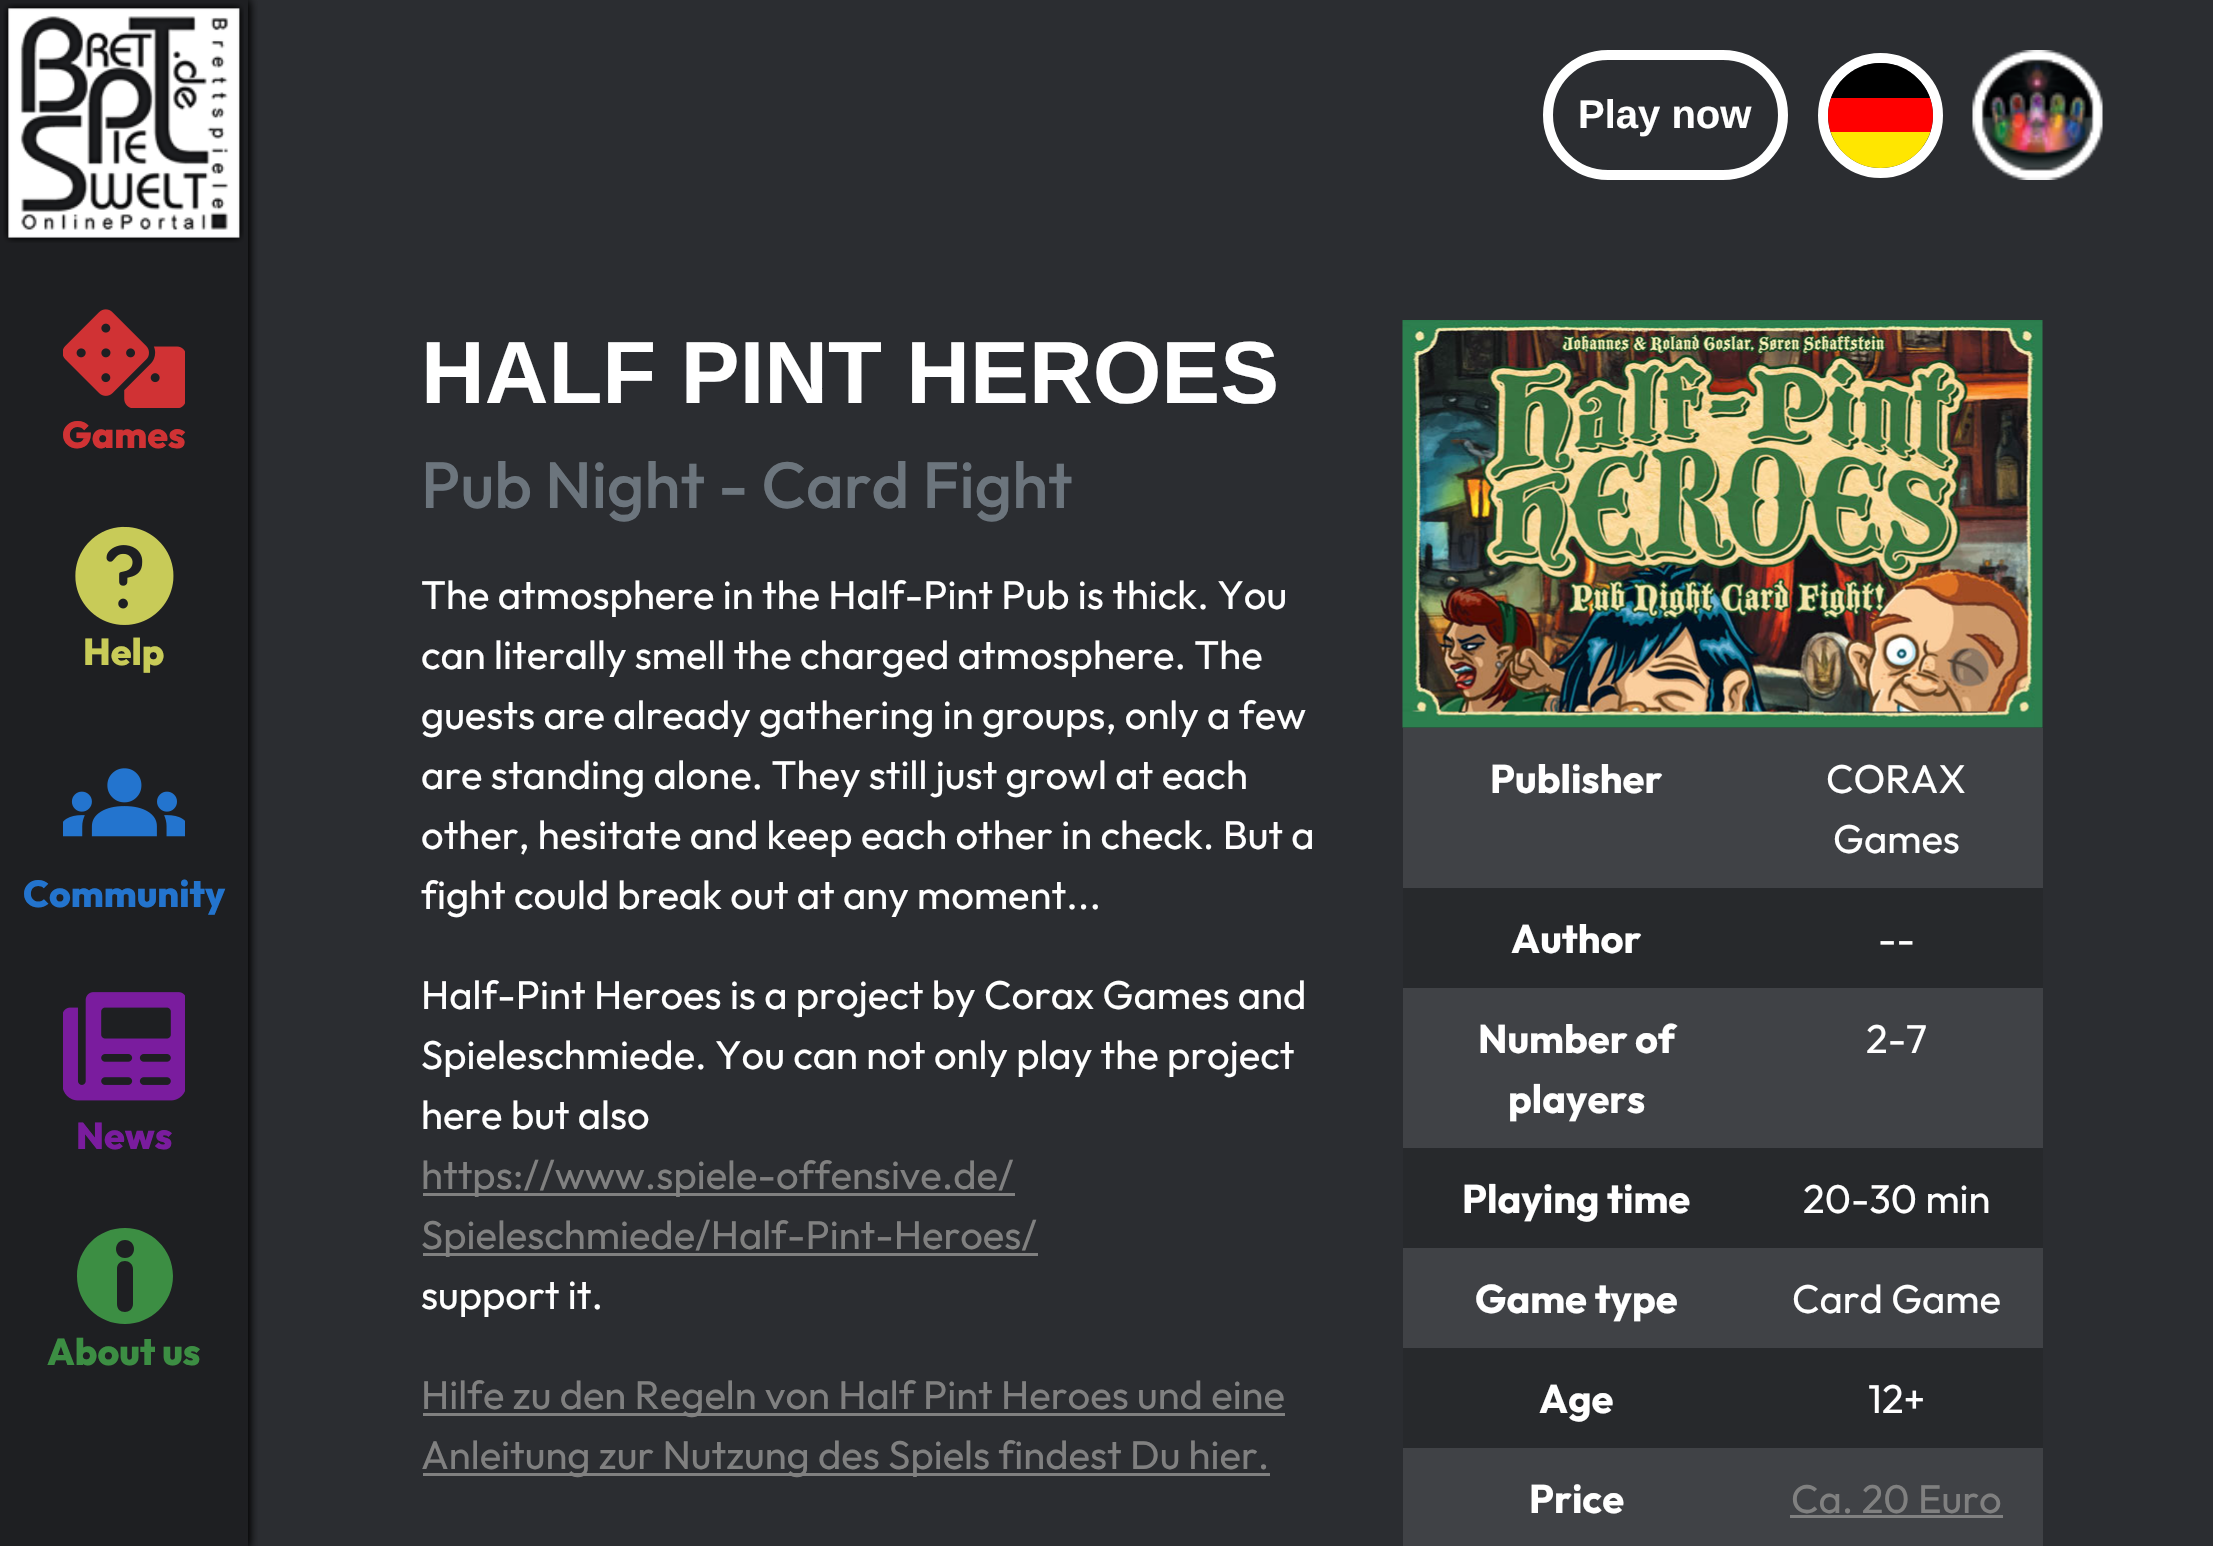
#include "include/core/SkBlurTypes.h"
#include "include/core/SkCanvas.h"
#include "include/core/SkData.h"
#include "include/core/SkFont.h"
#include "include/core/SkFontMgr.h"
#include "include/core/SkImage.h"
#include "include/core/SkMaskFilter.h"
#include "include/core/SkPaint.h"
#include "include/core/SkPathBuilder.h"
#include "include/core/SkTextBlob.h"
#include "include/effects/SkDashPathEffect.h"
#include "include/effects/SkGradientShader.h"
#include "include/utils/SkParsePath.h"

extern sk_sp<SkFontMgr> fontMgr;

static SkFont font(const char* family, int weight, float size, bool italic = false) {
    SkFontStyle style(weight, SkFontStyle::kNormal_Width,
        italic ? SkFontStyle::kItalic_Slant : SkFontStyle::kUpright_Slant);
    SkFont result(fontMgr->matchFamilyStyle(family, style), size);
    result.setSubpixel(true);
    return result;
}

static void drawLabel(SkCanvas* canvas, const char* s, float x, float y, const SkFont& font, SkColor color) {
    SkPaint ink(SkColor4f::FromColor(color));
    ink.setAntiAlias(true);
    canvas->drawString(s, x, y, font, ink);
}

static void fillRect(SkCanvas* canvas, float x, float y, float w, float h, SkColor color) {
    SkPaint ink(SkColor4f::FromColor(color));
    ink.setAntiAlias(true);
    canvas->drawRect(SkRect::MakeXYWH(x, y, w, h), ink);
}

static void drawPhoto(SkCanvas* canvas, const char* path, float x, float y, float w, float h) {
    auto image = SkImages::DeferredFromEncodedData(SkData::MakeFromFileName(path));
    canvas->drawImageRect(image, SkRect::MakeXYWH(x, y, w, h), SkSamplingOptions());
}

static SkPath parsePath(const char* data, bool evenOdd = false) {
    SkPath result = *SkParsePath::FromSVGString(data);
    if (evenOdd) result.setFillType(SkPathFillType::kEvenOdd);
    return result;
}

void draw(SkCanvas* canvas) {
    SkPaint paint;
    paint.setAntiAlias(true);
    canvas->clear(0xFF2B2D31);
    paint.setColor(0xFF000000);
    paint.setMaskFilter(SkMaskFilter::MakeBlur(kNormal_SkBlurStyle, 5));
    canvas->drawRect(SkRect::MakeXYWH(0, 0, 248, 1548), paint);
    paint.setMaskFilter(nullptr);
    paint.setMaskFilter(SkMaskFilter::MakeBlur(kNormal_SkBlurStyle, 5));
    canvas->drawRect(SkRect::MakeXYWH(0, 0, 248, 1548), paint);
    paint.setMaskFilter(nullptr);
    fillRect(canvas, 0, 0, 248, 1546, 0xFF1E1F22);
    drawPhoto(canvas, "assets/img1.png", 3, 3, 241, 240);
    drawPhoto(canvas, "assets/img2.png", 63, 309, 122, 99);
    SkFont font1 = font("Outfit", 800, 37.5f);
    drawLabel(canvas, "Games", 62, 448, font1, 0xFFD03234);
    drawPhoto(canvas, "assets/img3.png", 75, 526, 99, 99);
    drawLabel(canvas, "Help", 83, 665, font1, 0xFFC8CB58);
    drawPhoto(canvas, "assets/img4.png", 63, 768, 122, 69);
    drawLabel(canvas, "Community", 23, 907, font1, 0xFF2374CE);
    drawPhoto(canvas, "assets/img5.png", 63, 992, 122, 109);
    drawLabel(canvas, "News", 76, 1149, font1, 0xFF7A1C9E);
    paint.setColor(0xFF3C8E43);
    canvas->drawPath(parsePath("M125 1228C98 1228 77 1249 77 1276C77 1303 98 1324 125 1324C151 1324 173 1303 173 1276C173 1249 151 1228 125 1228ZM133 1304C133 1309 129 1312 125 1312C120 1312 117 1309 117 1304V1269C117 1264 120 1261 125 1261C129 1261 133 1264 133 1269ZM125 1258C113 1258 113 1240 125 1240C137 1240 137 1258 125 1258Z"), paint);
    drawLabel(canvas, "About us", 47, 1365, font1, 0xFF3C8E43);
    paint.setStroke(true);
    paint.setStrokeWidth(10);
    paint.setColor(0xFFFFFFFF);
    canvas->drawRoundRect(SkRect::MakeXYWH(1548, 55, 235, 120), 60, 60, paint);
    SkFont font2 = font("Liberation Sans", 700, 40);
    drawLabel(canvas, "Play now", 1578, 128, font2, 0xFFFFFFFF);
    canvas->drawCircle(1880.5f, 115.5f, 57.5f, paint);
    canvas->save();
    canvas->clipPath(parsePath("M1880.5 63C1909.5 63 1933 86.5 1933 115.5C1933 144.5 1909.5 168 1880.5 168C1851.5 168 1828 144.5 1828 115.5C1828 86.5 1851.5 63 1880.5 63Z"), true);
    fillRect(canvas, 1830, 132, 101, 36, 0xFFFFE600);
    fillRect(canvas, 1831, 63, 99, 35, 0xFF000000);
    fillRect(canvas, 1828, 98, 105, 34, 0xFFFF0000);
    canvas->restore();
    drawPhoto(canvas, "assets/img6.png", 1972, 50, 131, 130);
    SkFont font3 = font("Liberation Sans", 700, 88.25f);
    drawLabel(canvas, "HALF PINT HEROES", 421, 403, font3, 0xFFFFFFFF);
    SkFont font4 = font("Outfit", 500, 65.25f);
    drawLabel(canvas, "Pub Night - Card Fight", 421, 508, font4, 0xFF6C757D);
    SkFont font5 = font("Outfit", 400, 40);
    drawLabel(canvas, "The atmosphere in the Half-Pint Pub is thick. You", 421, 609, font5, 0xFFFFFFFF);
    drawLabel(canvas, "can literally smell the charged atmosphere. The", 421, 669, font5, 0xFFFFFFFF);
    drawLabel(canvas, "guests are already gathering in groups, only a few", 421, 729, font5, 0xFFFFFFFF);
    drawLabel(canvas, "are standing alone. They still just growl at each", 421, 789, font5, 0xFFFFFFFF);
    drawLabel(canvas, "other, hesitate and keep each other in check. But a", 421, 849, font5, 0xFFFFFFFF);
    drawLabel(canvas, "fight could break out at any moment...", 421, 909, font5, 0xFFFFFFFF);
    drawLabel(canvas, "Half-Pint Heroes is a project by Corax Games and", 421, 1009, font5, 0xFFFFFFFF);
    drawLabel(canvas, "Spieleschmiede. You can not only play the project", 421, 1069, font5, 0xFFFFFFFF);
    drawLabel(canvas, "here but also", 421, 1129, font5, 0xFFFFFFFF);
    fillRect(canvas, 423, 1193, 592, 3, 0xFF808080);
    drawLabel(canvas, "https://www.spiele-offensive.de/", 421, 1189, font5, 0xFF808080);
    fillRect(canvas, 423, 1253, 615, 3, 0xFF808080);
    drawLabel(canvas, "Spieleschmiede/Half-Pint-Heroes/", 421, 1249, font5, 0xFF808080);
    drawLabel(canvas, "support it.", 421, 1309, font5, 0xFFFFFFFF);
    fillRect(canvas, 423, 1413, 862, 3, 0xFF808080);
    drawLabel(canvas, "Hilfe zu den Regeln von Half Pint Heroes und eine", 421, 1409, font5, 0xFF808080);
    fillRect(canvas, 423, 1473, 847, 3, 0xFF808080);
    drawLabel(canvas, "Anleitung zur Nutzung des Spiels findest Du hier.", 421, 1469, font5, 0xFF808080);
    drawPhoto(canvas, "assets/img7.png", 1402, 320, 641, 408);
    fillRect(canvas, 1403, 728, 640, 160, 0xFF404246);
    SkFont font6 = font("Outfit", 700, 40);
    drawLabel(canvas, "Publisher", 1490, 793, font6, 0xFFFFFFFF);
    drawLabel(canvas, "CORAX", 1826, 793, font5, 0xFFFFFFFF);
    drawLabel(canvas, "Games", 1833, 853, font5, 0xFFFFFFFF);
    fillRect(canvas, 1403, 888, 640, 100, 0xFF27292C);
    drawLabel(canvas, "Author", 1511, 953, font6, 0xFFFFFFFF);
    drawLabel(canvas, "--", 1878, 953, font5, 0xFFFFFFFF);
    fillRect(canvas, 1403, 988, 640, 160, 0xFF404246);
    drawLabel(canvas, "Number of", 1478, 1053, font6, 0xFFFFFFFF);
    drawLabel(canvas, "players", 1508, 1113, font6, 0xFFFFFFFF);
    drawLabel(canvas, "2-7", 1866, 1053, font5, 0xFFFFFFFF);
    fillRect(canvas, 1403, 1148, 640, 100, 0xFF27292C);
    drawLabel(canvas, "Playing time", 1462, 1213, font6, 0xFFFFFFFF);
    drawLabel(canvas, "20-30 min", 1803, 1213, font5, 0xFFFFFFFF);
    fillRect(canvas, 1403, 1248, 640, 100, 0xFF404246);
    drawLabel(canvas, "Game type", 1475, 1313, font6, 0xFFFFFFFF);
    drawLabel(canvas, "Card Game", 1792, 1313, font5, 0xFFFFFFFF);
    fillRect(canvas, 1403, 1348, 640, 100, 0xFF27292C);
    drawLabel(canvas, "Age", 1539, 1413, font6, 0xFFFFFFFF);
    drawLabel(canvas, "12+", 1868, 1413, font5, 0xFFFFFFFF);
    fillRect(canvas, 1403, 1448, 640, 98, 0xFF404246);
    drawLabel(canvas, "Price", 1529, 1513, font6, 0xFFFFFFFF);
    drawLabel(canvas, "Ca. 20 Euro", 1791, 1513, font5, 0xFF808080);
    fillRect(canvas, 1790, 1515, 213, 3, 0xFF808080);
}
